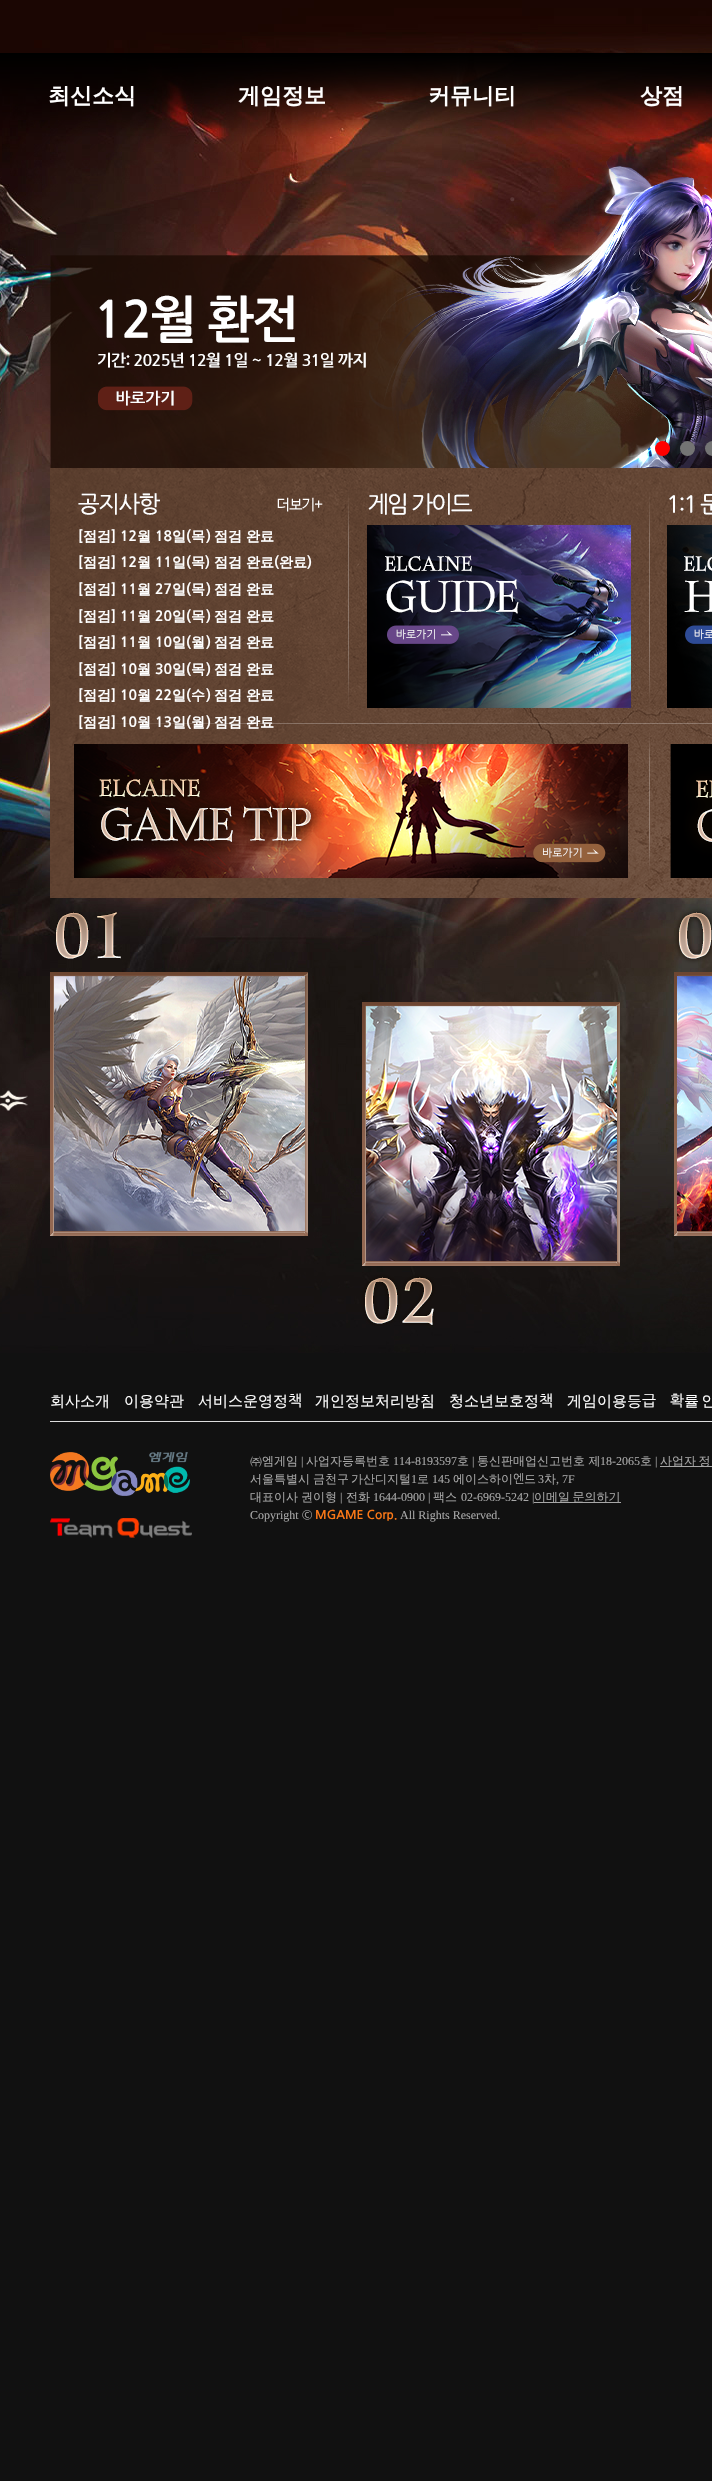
#include "include/core/SkBlurTypes.h"
#include "include/core/SkCanvas.h"
#include "include/core/SkData.h"
#include "include/core/SkFont.h"
#include "include/core/SkFontMgr.h"
#include "include/core/SkImage.h"
#include "include/core/SkMaskFilter.h"
#include "include/core/SkPaint.h"
#include "include/core/SkPathBuilder.h"
#include "include/core/SkTextBlob.h"
#include "include/effects/SkDashPathEffect.h"
#include "include/effects/SkGradientShader.h"
#include "include/utils/SkParsePath.h"

extern sk_sp<SkFontMgr> fontMgr;

static SkFont font(const char* family, int weight, float size, bool italic = false) {
    SkFontStyle style(weight, SkFontStyle::kNormal_Width,
        italic ? SkFontStyle::kItalic_Slant : SkFontStyle::kUpright_Slant);
    SkFont result(fontMgr->matchFamilyStyle(family, style), size);
    result.setSubpixel(true);
    return result;
}

static void drawLabel(SkCanvas* canvas, const char* s, float x, float y, const SkFont& font, SkColor color) {
    SkPaint ink(SkColor4f::FromColor(color));
    ink.setAntiAlias(true);
    canvas->drawString(s, x, y, font, ink);
}

static void drawTracked(SkCanvas* canvas, const char* s, float x, float y, const SkFont& font, const SkPaint& ink, float letter, float word) {
    std::vector<SkGlyphID> glyphs(font.countText(s, strlen(s), SkTextEncoding::kUTF8));
    std::vector<float> xs(glyphs.size());
    font.textToGlyphs(s, strlen(s), SkTextEncoding::kUTF8, glyphs);
    font.getXPos(glyphs, xs, x);
    float extra = 0;
    for (size_t i = 0; i < glyphs.size(); i++) {
        xs[i] += extra;
        extra += letter + word * (glyphs[i] == font.unicharToGlyph(' '));
    }
    canvas->drawTextBlob(SkTextBlob::MakeFromPosHGlyphs(glyphs, xs, y, font), 0, 0, ink);
}

static void fillRect(SkCanvas* canvas, float x, float y, float w, float h, SkColor color) {
    SkPaint ink(SkColor4f::FromColor(color));
    ink.setAntiAlias(true);
    canvas->drawRect(SkRect::MakeXYWH(x, y, w, h), ink);
}

static void drawPhoto(SkCanvas* canvas, const char* path, float x, float y, float w, float h) {
    auto image = SkImages::DeferredFromEncodedData(SkData::MakeFromFileName(path));
    canvas->drawImageRect(image, SkRect::MakeXYWH(x, y, w, h), SkSamplingOptions());
}

void draw(SkCanvas* canvas) {
    SkPaint paint;
    paint.setAntiAlias(true);
    canvas->clear(0xFF111111);
    drawPhoto(canvas, "assets/img1.png", 0, 0, 712, 1353);
    SkFont font1 = font("WenQuanYi Zen Hei", 700, 22);
    drawLabel(canvas, "최신소식", 48, 103, font1, 0xFFFFFFFF);
    drawLabel(canvas, "게임정보", 238, 103, font1, 0xFFFFFFFF);
    drawLabel(canvas, "커뮤니티", 428, 103, font1, 0xFFFFFFFF);
    drawLabel(canvas, "상점", 640, 103, font1, 0xFFFFFFFF);
    drawPhoto(canvas, "assets/img2.png", 50, 154, 662, 314);
    paint.setColor(0xFFFF0000);
    canvas->drawCircle(662.5f, 448.5f, 7.5f, paint);
    paint.setColor(0xFF747474);
    canvas->drawCircle(687.5f, 448.5f, 7.5f, paint);
    canvas->drawCircle(712.5f, 448.5f, 7.5f, paint);
    drawPhoto(canvas, "assets/img3.png", 50, 468, 662, 858);
    drawPhoto(canvas, "assets/img4.png", 277, 497, 46, 15);
    SkFont font2 = font("NanumGothic", 700, 14);
    drawLabel(canvas, "[", 78, 541, font2, 0xFFFFFFFF);
    SkFont font3 = font("WenQuanYi Zen Hei", 700, 14);
    drawLabel(canvas, "점검", 83, 541, font3, 0xFFFFFFFF);
    drawLabel(canvas, "] 12", 111, 541, font2, 0xFFFFFFFF);
    drawLabel(canvas, "월", 137, 541, font3, 0xFFFFFFFF);
    drawLabel(canvas, "18", 155, 541, font2, 0xFFFFFFFF);
    drawLabel(canvas, "일", 172, 541, font3, 0xFFFFFFFF);
    drawLabel(canvas, "(", 186, 541, font2, 0xFFFFFFFF);
    drawLabel(canvas, "목", 191, 541, font3, 0xFFFFFFFF);
    drawLabel(canvas, ")", 206, 541, font2, 0xFFFFFFFF);
    drawLabel(canvas, "점검", 214, 541, font3, 0xFFFFFFFF);
    drawLabel(canvas, "완료", 246, 541, font3, 0xFFFFFFFF);
    drawLabel(canvas, "[", 78, 567, font2, 0xFFFFFFFF);
    drawLabel(canvas, "점검", 83, 567, font3, 0xFFFFFFFF);
    drawLabel(canvas, "] 12", 111, 567, font2, 0xFFFFFFFF);
    drawLabel(canvas, "월", 137, 567, font3, 0xFFFFFFFF);
    drawLabel(canvas, "11", 155, 567, font2, 0xFFFFFFFF);
    drawLabel(canvas, "일", 172, 567, font3, 0xFFFFFFFF);
    drawLabel(canvas, "(", 186, 567, font2, 0xFFFFFFFF);
    drawLabel(canvas, "목", 191, 567, font3, 0xFFFFFFFF);
    drawLabel(canvas, ")", 205, 567, font2, 0xFFFFFFFF);
    drawLabel(canvas, "점검", 214, 567, font3, 0xFFFFFFFF);
    drawLabel(canvas, "완료", 246, 567, font3, 0xFFFFFFFF);
    drawLabel(canvas, "(", 274, 567, font2, 0xFFFFFFFF);
    drawLabel(canvas, "완료", 279, 567, font3, 0xFFFFFFFF);
    drawLabel(canvas, ")", 307, 567, font2, 0xFFFFFFFF);
    drawLabel(canvas, "[", 78, 594, font2, 0xFFFFFFFF);
    drawLabel(canvas, "점검", 83, 594, font3, 0xFFFFFFFF);
    drawLabel(canvas, "] 11", 111, 594, font2, 0xFFFFFFFF);
    drawLabel(canvas, "월", 137, 594, font3, 0xFFFFFFFF);
    drawLabel(canvas, "27", 155, 594, font2, 0xFFFFFFFF);
    drawLabel(canvas, "일", 172, 594, font3, 0xFFFFFFFF);
    drawLabel(canvas, "(", 186, 594, font2, 0xFFFFFFFF);
    drawLabel(canvas, "목", 191, 594, font3, 0xFFFFFFFF);
    drawLabel(canvas, ")", 206, 594, font2, 0xFFFFFFFF);
    drawLabel(canvas, "점검", 214, 594, font3, 0xFFFFFFFF);
    drawLabel(canvas, "완료", 246, 594, font3, 0xFFFFFFFF);
    drawLabel(canvas, "[", 78, 621, font2, 0xFFFFFFFF);
    drawLabel(canvas, "점검", 83, 621, font3, 0xFFFFFFFF);
    drawLabel(canvas, "] 11", 111, 621, font2, 0xFFFFFFFF);
    drawLabel(canvas, "월", 137, 621, font3, 0xFFFFFFFF);
    drawLabel(canvas, "20", 155, 621, font2, 0xFFFFFFFF);
    drawLabel(canvas, "일", 172, 621, font3, 0xFFFFFFFF);
    drawLabel(canvas, "(", 186, 621, font2, 0xFFFFFFFF);
    drawLabel(canvas, "목", 191, 621, font3, 0xFFFFFFFF);
    drawLabel(canvas, ")", 206, 621, font2, 0xFFFFFFFF);
    drawLabel(canvas, "점검", 214, 621, font3, 0xFFFFFFFF);
    drawLabel(canvas, "완료", 246, 621, font3, 0xFFFFFFFF);
    drawLabel(canvas, "[", 78, 647, font2, 0xFFFFFFFF);
    drawLabel(canvas, "점검", 83, 647, font3, 0xFFFFFFFF);
    drawLabel(canvas, "] 11", 111, 647, font2, 0xFFFFFFFF);
    drawLabel(canvas, "월", 137, 647, font3, 0xFFFFFFFF);
    drawLabel(canvas, "10", 155, 647, font2, 0xFFFFFFFF);
    drawLabel(canvas, "일", 172, 647, font3, 0xFFFFFFFF);
    drawLabel(canvas, "(", 186, 647, font2, 0xFFFFFFFF);
    drawLabel(canvas, "월", 191, 647, font3, 0xFFFFFFFF);
    drawLabel(canvas, ")", 206, 647, font2, 0xFFFFFFFF);
    drawLabel(canvas, "점검", 214, 647, font3, 0xFFFFFFFF);
    drawLabel(canvas, "완료", 246, 647, font3, 0xFFFFFFFF);
    drawLabel(canvas, "[", 78, 674, font2, 0xFFFFFFFF);
    drawLabel(canvas, "점검", 83, 674, font3, 0xFFFFFFFF);
    drawLabel(canvas, "] 10", 111, 674, font2, 0xFFFFFFFF);
    drawLabel(canvas, "월", 137, 674, font3, 0xFFFFFFFF);
    drawLabel(canvas, "30", 155, 674, font2, 0xFFFFFFFF);
    drawLabel(canvas, "일", 172, 674, font3, 0xFFFFFFFF);
    drawLabel(canvas, "(", 186, 674, font2, 0xFFFFFFFF);
    drawLabel(canvas, "목", 191, 674, font3, 0xFFFFFFFF);
    drawLabel(canvas, ")", 206, 674, font2, 0xFFFFFFFF);
    drawLabel(canvas, "점검", 214, 674, font3, 0xFFFFFFFF);
    drawLabel(canvas, "완료", 246, 674, font3, 0xFFFFFFFF);
    drawLabel(canvas, "[", 78, 700, font2, 0xFFFFFFFF);
    drawLabel(canvas, "점검", 83, 700, font3, 0xFFFFFFFF);
    drawLabel(canvas, "] 10", 111, 700, font2, 0xFFFFFFFF);
    drawLabel(canvas, "월", 137, 700, font3, 0xFFFFFFFF);
    drawLabel(canvas, "22", 155, 700, font2, 0xFFFFFFFF);
    drawLabel(canvas, "일", 172, 700, font3, 0xFFFFFFFF);
    drawLabel(canvas, "(", 186, 700, font2, 0xFFFFFFFF);
    drawLabel(canvas, "수", 191, 700, font3, 0xFFFFFFFF);
    drawLabel(canvas, ")", 206, 700, font2, 0xFFFFFFFF);
    drawLabel(canvas, "점검", 214, 700, font3, 0xFFFFFFFF);
    drawLabel(canvas, "완료", 246, 700, font3, 0xFFFFFFFF);
    drawLabel(canvas, "[", 78, 727, font2, 0xFFFFFFFF);
    drawLabel(canvas, "점검", 83, 727, font3, 0xFFFFFFFF);
    drawLabel(canvas, "] 10", 111, 727, font2, 0xFFFFFFFF);
    drawLabel(canvas, "월", 137, 727, font3, 0xFFFFFFFF);
    drawLabel(canvas, "13", 155, 727, font2, 0xFFFFFFFF);
    drawLabel(canvas, "일", 172, 727, font3, 0xFFFFFFFF);
    drawLabel(canvas, "(", 186, 727, font2, 0xFFFFFFFF);
    drawLabel(canvas, "월", 191, 727, font3, 0xFFFFFFFF);
    drawLabel(canvas, ")", 206, 727, font2, 0xFFFFFFFF);
    drawLabel(canvas, "점검", 214, 727, font3, 0xFFFFFFFF);
    drawLabel(canvas, "완료", 246, 727, font3, 0xFFFFFFFF);
    drawPhoto(canvas, "assets/img5.png", 367, 525, 264, 183);
    drawPhoto(canvas, "assets/img6.png", 667, 525, 45, 183);
    drawPhoto(canvas, "assets/img7.png", 74, 744, 554, 134);
    drawPhoto(canvas, "assets/img8.png", 670, 744, 42, 134);
    drawPhoto(canvas, "assets/img9.png", 0, 1090, 28, 21);
    drawPhoto(canvas, "assets/img10.png", 50, 972, 258, 264);
    drawPhoto(canvas, "assets/img11.png", 362, 1002, 258, 264);
    drawPhoto(canvas, "assets/img12.png", 674, 972, 38, 264);
    fillRect(canvas, 50, 1421, 662, 1, 0xFFDDDDDD);
    SkFont font4 = font("WenQuanYi Zen Hei", 500, 15);
    drawLabel(canvas, "회사소개", 50, 1406, font4, 0xFFFFFFFF);
    drawLabel(canvas, "이용약관", 124, 1406, font4, 0xFFFFFFFF);
    drawLabel(canvas, "서비스운영정", 198, 1406, font4, 0xFFFFFFFF);
    SkFont font5 = font("NanumGothic", 400, 15);
    drawLabel(canvas, "책", 288, 1406, font5, 0xFFFFFFFF);
    drawLabel(canvas, "개인정보처리방침", 315, 1406, font4, 0xFFFFFFFF);
    drawLabel(canvas, "청소년보호정", 449, 1406, font4, 0xFFFFFFFF);
    drawLabel(canvas, "책", 539, 1406, font5, 0xFFFFFFFF);
    drawLabel(canvas, "게임이용등", 567, 1406, font4, 0xFFFFFFFF);
    drawLabel(canvas, "급", 642, 1406, font5, 0xFFFFFFFF);
    drawLabel(canvas, "확", 670, 1406, font5, 0xFFFFFFFF);
    paint.setColor(0xFFFFFFFF);
    drawTracked(canvas, "률 안", 684, 1406, font4, paint, 0, -2);
    drawPhoto(canvas, "assets/img13.png", 50, 1452, 140, 44);
    drawPhoto(canvas, "assets/img14.png", 50, 1518, 142, 20);
    SkFont font6 = font("WenQuanYi Zen Hei", 500, 12);
    drawLabel(canvas, "㈜엠게임", 250, 1465, font6, 0xFFA7A7A7);
    SkFont font7 = font("Liberation Serif", 400, 12);
    drawLabel(canvas, "|", 301, 1465, font7, 0xFFA7A7A7);
    drawLabel(canvas, "사업자등록번호", 306, 1465, font6, 0xFFA7A7A7);
    drawLabel(canvas, "114-8193597", 393, 1465, font7, 0xFFA7A7A7);
    drawLabel(canvas, "호", 457, 1465, font6, 0xFFA7A7A7);
    drawLabel(canvas, "|", 472, 1465, font7, 0xFFA7A7A7);
    drawLabel(canvas, "통신판매업신고번호 제", 477, 1465, font6, 0xFFA7A7A7);
    drawLabel(canvas, "18-2065", 600, 1465, font7, 0xFFA7A7A7);
    drawLabel(canvas, "호", 640, 1465, font6, 0xFFA7A7A7);
    drawLabel(canvas, "|", 655, 1465, font7, 0xFFA7A7A7);
    fillRect(canvas, 660, 1466, 52, 1, 0xFFA7A7A7);
    paint.setColor(0xFFA7A7A7);
    drawTracked(canvas, "사업자 정", 660, 1465, font6, paint, 0, -1);
    drawLabel(canvas, "서울특별시", 250, 1483, font6, 0xFFA7A7A7);
    drawLabel(canvas, "금천구", 313, 1483, font6, 0xFFA7A7A7);
    drawLabel(canvas, "가산디지털", 351, 1483, font6, 0xFFA7A7A7);
    drawLabel(canvas, "1", 411, 1483, font7, 0xFFA7A7A7);
    drawLabel(canvas, "로", 417, 1483, font6, 0xFFA7A7A7);
    drawLabel(canvas, "145", 432, 1483, font7, 0xFFA7A7A7);
    drawLabel(canvas, "에이스하이", 453, 1483, font6, 0xFFA7A7A7);
    SkFont font8 = font("NanumGothic", 400, 12);
    drawLabel(canvas, "엔", 513, 1483, font8, 0xFFA7A7A7);
    drawLabel(canvas, "드", 524, 1483, font6, 0xFFA7A7A7);
    drawLabel(canvas, "3", 538, 1483, font7, 0xFFA7A7A7);
    drawLabel(canvas, "차", 544, 1483, font6, 0xFFA7A7A7);
    drawLabel(canvas, ", 7F", 556, 1483, font7, 0xFFA7A7A7);
    drawLabel(canvas, "대표이사", 250, 1501, font6, 0xFFA7A7A7);
    drawLabel(canvas, "권이형", 301, 1501, font6, 0xFFA7A7A7);
    drawLabel(canvas, "|", 340, 1501, font7, 0xFFA7A7A7);
    drawLabel(canvas, "전화", 346, 1501, font6, 0xFFA7A7A7);
    drawLabel(canvas, "1644-0900 |", 373, 1501, font7, 0xFFA7A7A7);
    drawLabel(canvas, "팩스", 433, 1501, font6, 0xFFA7A7A7);
    drawLabel(canvas, "02-6969-5242 |", 461, 1501, font7, 0xFFA7A7A7);
    fillRect(canvas, 534, 1502, 87, 1, 0xFFA7A7A7);
    drawTracked(canvas, "이메일 문의하기", 534, 1501, font6, paint, 0, -1);
    drawLabel(canvas, "Copyright", 250, 1519, font7, 0xFFA7A7A7);
    drawLabel(canvas, "©", 302, 1519, font8, 0xFFA7A7A7);
    SkFont font9 = font("NanumGothic", 700, 12);
    drawLabel(canvas, "MGAME Corp.", 315, 1519, font9, 0xFFFC7816);
    drawLabel(canvas, "All Rights Reserved.", 400, 1519, font7, 0xFFA7A7A7);
}
